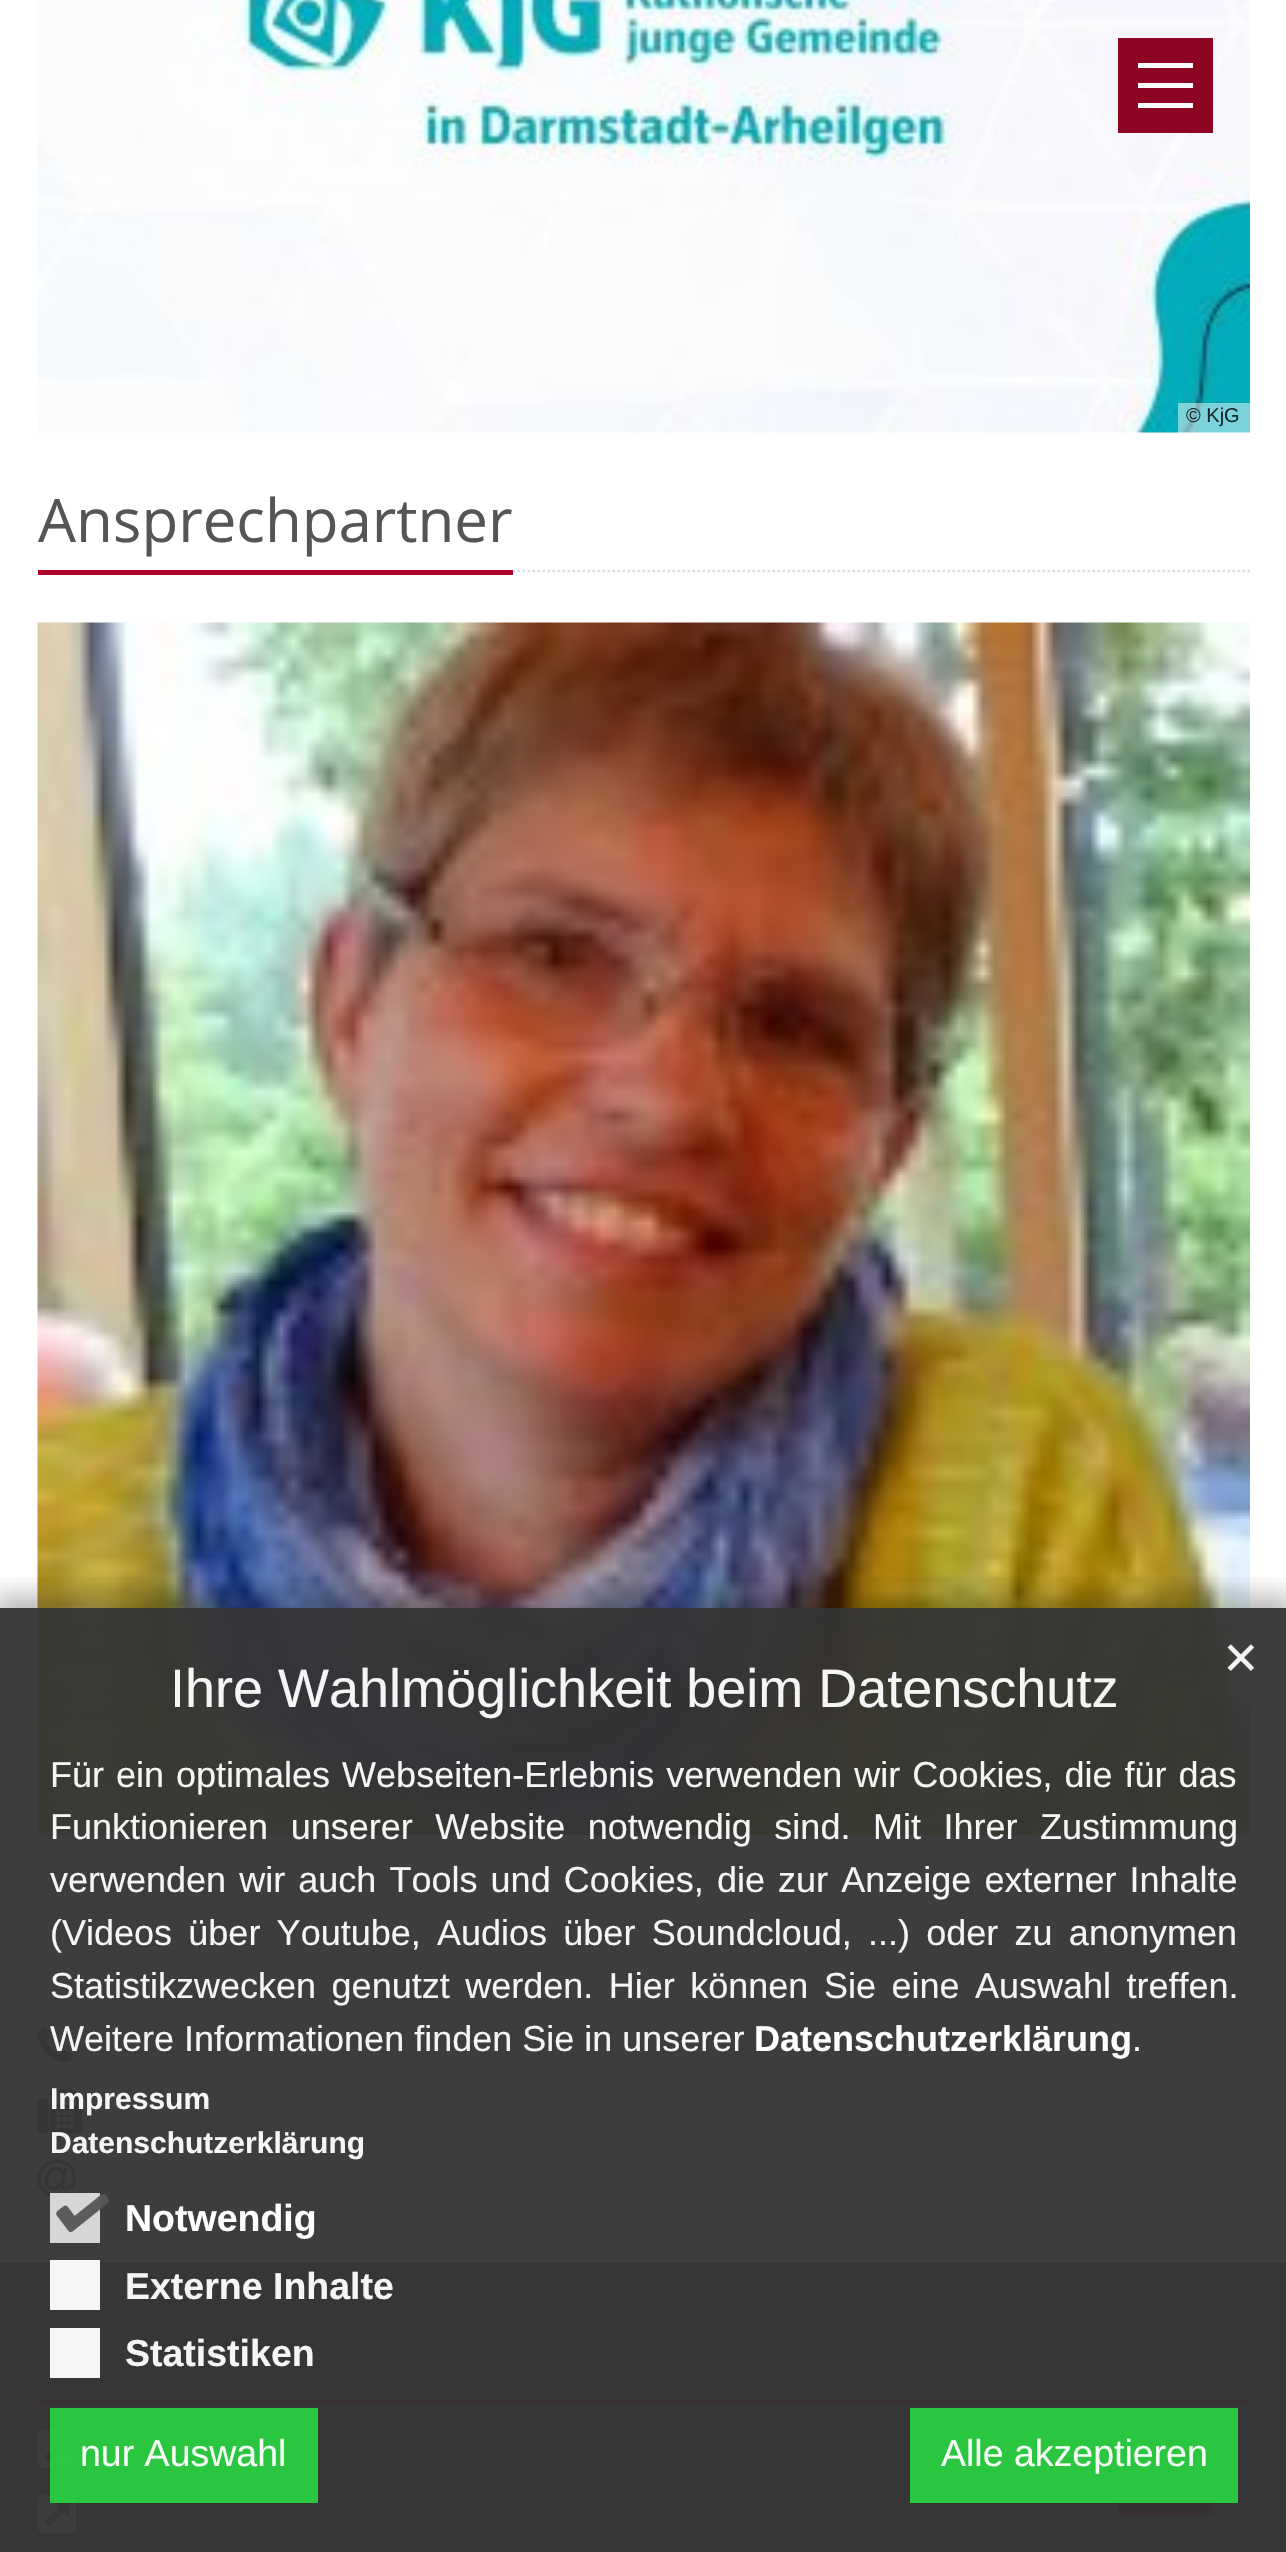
#include "include/core/SkBlurTypes.h"
#include "include/core/SkCanvas.h"
#include "include/core/SkData.h"
#include "include/core/SkFont.h"
#include "include/core/SkFontMgr.h"
#include "include/core/SkImage.h"
#include "include/core/SkMaskFilter.h"
#include "include/core/SkPaint.h"
#include "include/core/SkPathBuilder.h"
#include "include/core/SkTextBlob.h"
#include "include/effects/SkDashPathEffect.h"
#include "include/effects/SkGradientShader.h"
#include "include/utils/SkParsePath.h"

extern sk_sp<SkFontMgr> fontMgr;

static SkFont font(const char* family, int weight, float size, bool italic = false) {
    SkFontStyle style(weight, SkFontStyle::kNormal_Width,
        italic ? SkFontStyle::kItalic_Slant : SkFontStyle::kUpright_Slant);
    SkFont result(fontMgr->matchFamilyStyle(family, style), size);
    result.setSubpixel(true);
    return result;
}

static void drawLabel(SkCanvas* canvas, const char* s, float x, float y, const SkFont& font, SkColor color) {
    SkPaint ink(SkColor4f::FromColor(color));
    ink.setAntiAlias(true);
    canvas->drawString(s, x, y, font, ink);
}

static void drawTracked(SkCanvas* canvas, const char* s, float x, float y, const SkFont& font, const SkPaint& ink, float letter, float word) {
    std::vector<SkGlyphID> glyphs(font.countText(s, strlen(s), SkTextEncoding::kUTF8));
    std::vector<float> xs(glyphs.size());
    font.textToGlyphs(s, strlen(s), SkTextEncoding::kUTF8, glyphs);
    font.getXPos(glyphs, xs, x);
    float extra = 0;
    for (size_t i = 0; i < glyphs.size(); i++) {
        xs[i] += extra;
        extra += letter + word * (glyphs[i] == font.unicharToGlyph(' '));
    }
    canvas->drawTextBlob(SkTextBlob::MakeFromPosHGlyphs(glyphs, xs, y, font), 0, 0, ink);
}

static void fillRect(SkCanvas* canvas, float x, float y, float w, float h, SkColor color) {
    SkPaint ink(SkColor4f::FromColor(color));
    ink.setAntiAlias(true);
    canvas->drawRect(SkRect::MakeXYWH(x, y, w, h), ink);
}

static void drawPhoto(SkCanvas* canvas, const char* path, float x, float y, float w, float h) {
    auto image = SkImages::DeferredFromEncodedData(SkData::MakeFromFileName(path));
    canvas->drawImageRect(image, SkRect::MakeXYWH(x, y, w, h), SkSamplingOptions());
}

static SkPath parsePath(const char* data, bool evenOdd = false) {
    SkPath result = *SkParsePath::FromSVGString(data);
    if (evenOdd) result.setFillType(SkPathFillType::kEvenOdd);
    return result;
}

void draw(SkCanvas* canvas) {
    SkPaint paint;
    paint.setAntiAlias(true);
    canvas->clear(0xFFFFFFFF);
    drawPhoto(canvas, "assets/img1.png", 37, 0, 1213, 433);
    fillRect(canvas, 1118, 38, 95, 95, 0xFF8E0523);
    fillRect(canvas, 1138, 83, 55, 5, 0xFFFFFFFF);
    fillRect(canvas, 1138, 63, 55, 5, 0xFFFFFFFF);
    fillRect(canvas, 1138, 103, 55, 5, 0xFFFFFFFF);
    fillRect(canvas, 1178, 403, 72, 30, 0x7AFFFFFF);
    SkFont font1 = font("Liberation Sans", 400, 20);
    drawLabel(canvas, "© KjG", 1186, 422, font1, 0xFF19292B);
    paint.setStroke(true);
    paint.setStrokeWidth(2.5f);
    paint.setColor(0xFFDDDDDD);
    paint.setPathEffect(SkDashPathEffect::Make({{2.5f, 2.5f}}, 0));
    canvas->drawPath(parsePath("M37.5 571H1250"), paint);
    paint.setPathEffect(nullptr);
    fillRect(canvas, 38, 570, 475, 5, 0xFFAE062B);
    SkFont font2 = font("Open Sans", 400, 60);
    drawLabel(canvas, "Ansprechpartner", 38, 542, font2, 0xFF555555);
    drawPhoto(canvas, "assets/img2.png", 37, 622, 1213, 1213);
    drawPhoto(canvas, "assets/img3.png", 37, 2027, 36, 36);
    drawPhoto(canvas, "assets/img4.png", 37, 2088, 46, 46);
    drawPhoto(canvas, "assets/img5.png", 37, 2159, 40, 40);
    fillRect(canvas, 0, 2263, 1286, 289, 0xFF636363);
    fillRect(canvas, 38, 2400, 1212, 5, 0xFFAE062B);
    drawPhoto(canvas, "assets/img6.png", 37, 2429, 40, 40);
    drawPhoto(canvas, "assets/img6.png", 37, 2494, 40, 40);
    fillRect(canvas, 1118, 2420, 95, 95, 0xFF8E0523);
    drawPhoto(canvas, "assets/img8.png", 1150, 2455, 32, 19);
    canvas->save();
    canvas->clipRect(SkRect::MakeXYWH(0, 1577, 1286, 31));
    paint.setStroke(false);
    paint.setColor(0x47000000);
    paint.setMaskFilter(SkMaskFilter::MakeBlur(kNormal_SkBlurStyle, 12.5f));
    canvas->drawRect(SkRect::MakeXYWH(-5, 1595, 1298, 955), paint);
    paint.setMaskFilter(nullptr);
    canvas->restore();
    fillRect(canvas, 0, 1608, 1286, 944, 0xF2333333);
    SkFont font3 = font("DejaVu Sans", 400, 45);
    drawLabel(canvas, "✕", 1222, 1674, font3, 0xFFF5F5F5);
    SkFont font4 = font("Liberation Sans", 400, 54);
    drawLabel(canvas, "Ihre Wahlmöglichkeit beim Datenschutz", 170, 1707, font4, 0xFFF5F5F5);
    SkFont font5 = font("Liberation Sans", 400, 36);
    paint.setColor(0xFFF5F5F5);
    drawTracked(canvas, "Für ein optimales Webseiten-Erlebnis verwenden wir Cookies, die für das", 50, 1787, font5, paint, 0, 2);
    drawTracked(canvas, "Funktionieren unserer Website notwendig sind. Mit Ihrer Zustimmung", 50, 1839, font5, paint, 0, 12.5f);
    drawTracked(canvas, "verwenden wir auch Tools und Cookies, die zur Anzeige externer Inhalte", 50, 1892, font5, paint, 0, 3.1f);
    drawTracked(canvas, "(Videos über Youtube, Audios über Soundcloud, ...) oder zu anonymen", 50, 1945, font5, paint, 0, 6.25f);
    drawTracked(canvas, "Statistikzwecken genutzt werden. Hier können Sie eine Auswahl treffen.", 50, 1998, font5, paint, 0, 5.5f);
    drawLabel(canvas, "Weitere Informationen finden Sie in unserer", 50, 2051, font5, 0xFFF5F5F5);
    SkFont font6 = font("Liberation Sans", 700, 36);
    drawLabel(canvas, "Datenschutzerklärung", 754, 2051, font6, 0xFFFFFFFF);
    drawLabel(canvas, ".", 1132, 2051, font5, 0xFFFFFFFF);
    SkFont font7 = font("Liberation Sans", 700, 30);
    drawLabel(canvas, "Impressum", 50, 2109, font7, 0xFFF5F5F5);
    drawLabel(canvas, "Datenschutzerklärung", 50, 2153, font7, 0xFFF5F5F5);
    fillRect(canvas, 50, 2193, 50, 50, 0xF2DDDDDD);
    drawPhoto(canvas, "assets/img7.png", 56, 2194, 53, 38);
    SkFont font8 = font("Liberation Sans", 700, 37.5f);
    drawLabel(canvas, "Notwendig", 125, 2231, font8, 0xFFFFFFFF);
    fillRect(canvas, 50, 2260, 50, 50, 0xF2FFFFFF);
    drawLabel(canvas, "Externe Inhalte", 125, 2299, font8, 0xFFF5F5F5);
    fillRect(canvas, 50, 2328, 50, 50, 0xF2FFFFFF);
    drawLabel(canvas, "Statistiken", 125, 2366, font8, 0xFFF5F5F5);
    fillRect(canvas, 50, 2408, 268, 95, 0xF229CE3F);
    SkFont font9 = font("Liberation Sans", 400, 37.5f);
    drawLabel(canvas, "nur Auswahl", 80, 2466, font9, 0xFFF4FCF5);
    fillRect(canvas, 910, 2408, 328, 95, 0xF229CE3F);
    drawLabel(canvas, "Alle akzeptieren", 941, 2466, font9, 0xFFF4FCF5);
}
